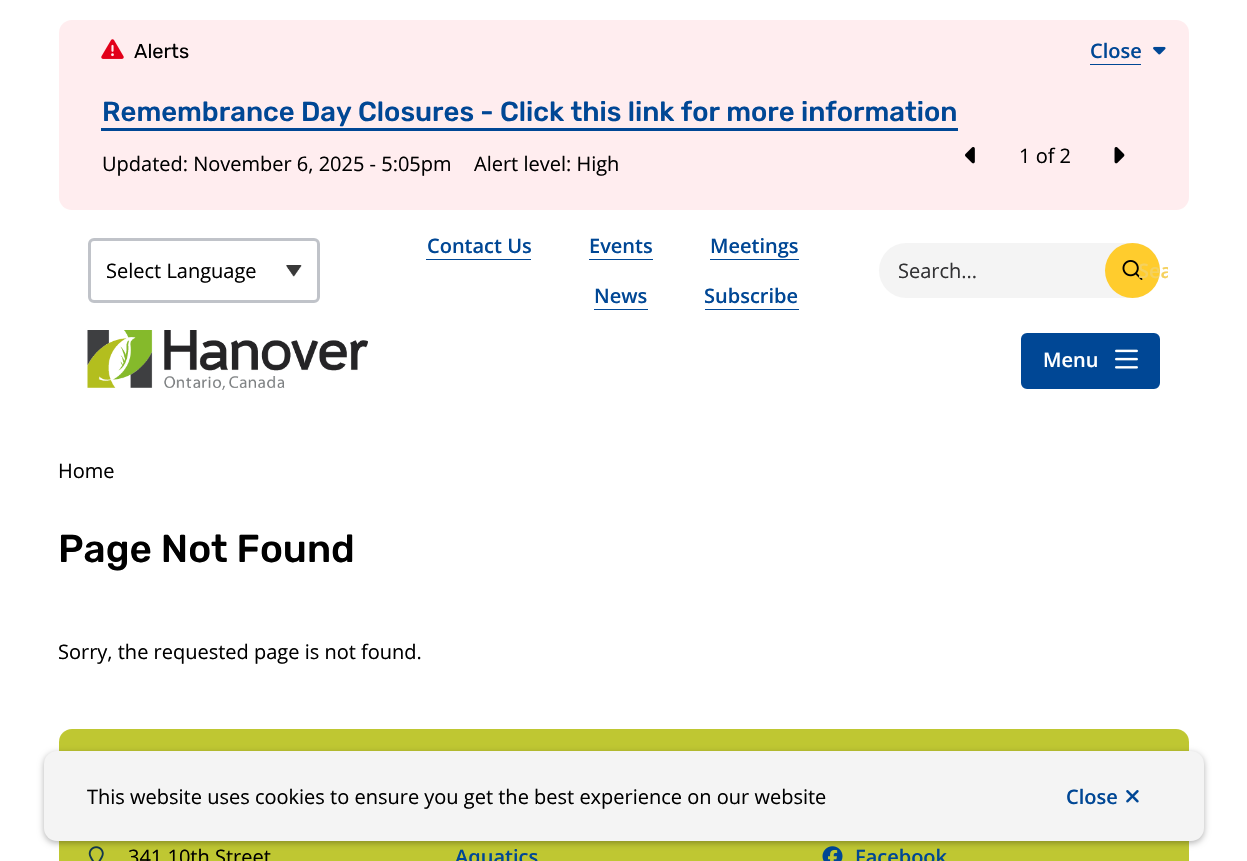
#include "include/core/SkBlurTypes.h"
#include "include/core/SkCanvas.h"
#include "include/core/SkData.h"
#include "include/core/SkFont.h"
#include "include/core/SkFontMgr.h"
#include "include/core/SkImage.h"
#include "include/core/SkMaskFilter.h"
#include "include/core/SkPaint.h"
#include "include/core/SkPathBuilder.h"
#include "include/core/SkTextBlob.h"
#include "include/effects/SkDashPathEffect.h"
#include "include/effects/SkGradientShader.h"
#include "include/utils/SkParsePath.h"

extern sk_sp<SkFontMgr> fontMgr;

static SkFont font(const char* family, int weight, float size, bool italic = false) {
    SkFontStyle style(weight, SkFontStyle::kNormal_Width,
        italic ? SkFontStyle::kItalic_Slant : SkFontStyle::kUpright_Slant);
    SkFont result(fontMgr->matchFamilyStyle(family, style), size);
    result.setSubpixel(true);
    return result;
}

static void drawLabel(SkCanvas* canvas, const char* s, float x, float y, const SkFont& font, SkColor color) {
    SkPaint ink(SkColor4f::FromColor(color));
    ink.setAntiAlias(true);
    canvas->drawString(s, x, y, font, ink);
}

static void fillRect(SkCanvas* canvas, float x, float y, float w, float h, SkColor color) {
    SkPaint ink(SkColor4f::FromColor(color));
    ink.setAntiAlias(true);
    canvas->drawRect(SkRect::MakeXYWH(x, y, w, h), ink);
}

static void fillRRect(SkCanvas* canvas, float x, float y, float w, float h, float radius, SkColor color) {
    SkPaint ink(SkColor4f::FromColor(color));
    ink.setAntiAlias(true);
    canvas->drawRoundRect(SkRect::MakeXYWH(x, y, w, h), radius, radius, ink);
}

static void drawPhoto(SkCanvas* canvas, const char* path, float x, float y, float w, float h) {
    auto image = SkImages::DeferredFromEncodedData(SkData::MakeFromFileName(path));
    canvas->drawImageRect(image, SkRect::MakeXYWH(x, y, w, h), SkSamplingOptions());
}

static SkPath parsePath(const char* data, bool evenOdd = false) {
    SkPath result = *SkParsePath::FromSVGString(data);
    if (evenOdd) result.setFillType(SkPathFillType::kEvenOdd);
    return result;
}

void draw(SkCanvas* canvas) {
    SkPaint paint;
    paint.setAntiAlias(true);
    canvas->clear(0xFFFFFFFF);
    fillRRect(canvas, 59, 20, 1130, 190, 13, 0xFFFFEDEF);
    drawPhoto(canvas, "assets/img1.png", 101, 39, 23, 20);
    SkFont font1 = font("Rubik", 400, 20);
    drawLabel(canvas, "Alerts", 134, 58, font1, 0xFF000000);
    SkFont font2 = font("Open Sans", 600, 20);
    drawLabel(canvas, "Close", 1090, 58, font2, 0xFF004795);
    fillRect(canvas, 1090, 64, 51, 1, 0xFF004795);
    drawPhoto(canvas, "assets/img2.png", 1153, 46, 13, 9);
    SkFont font3 = font("Rubik", 500, 27.5f);
    drawLabel(canvas, "Remembrance Day Closures - Click this link for more information", 102, 121, font3, 0xFF004795);
    fillRect(canvas, 101, 128, 857, 3, 0xFF004795);
    SkFont font4 = font("Open Sans", 400, 20);
    drawLabel(canvas, "Updated: November 6, 2025 - 5:05pm", 102, 171, font4, 0xFF000000);
    drawLabel(canvas, "Alert level: High", 474, 171, font4, 0xFF000000);
    drawPhoto(canvas, "assets/img3.png", 965, 147, 10, 17);
    drawLabel(canvas, "1 of 2", 1019, 163, font4, 0xFF000000);
    drawPhoto(canvas, "assets/img4.png", 1114, 147, 11, 17);
    drawPhoto(canvas, "assets/img5.png", 286, 265, 16, 12);
    paint.setStroke(true);
    paint.setStrokeWidth(3);
    paint.setColor(0xFFC0C3C9);
    canvas->drawRoundRect(SkRect::MakeXYWH(89.5f, 239.5f, 229, 62), 4.5f, 4.5f, paint);
    drawLabel(canvas, "Select Language", 106, 278, font4, 0xFF000000);
    drawLabel(canvas, "Contact Us", 427, 253, font2, 0xFF004795);
    fillRect(canvas, 426, 259, 105, 1, 0xFF004795);
    drawLabel(canvas, "Events", 589, 253, font2, 0xFF004795);
    fillRect(canvas, 589, 259, 64, 1, 0xFF004795);
    drawLabel(canvas, "Meetings", 710, 253, font2, 0xFF004795);
    fillRect(canvas, 710, 259, 89, 1, 0xFF004795);
    drawLabel(canvas, "News", 594, 303, font2, 0xFF004795);
    fillRect(canvas, 594, 309, 54, 1, 0xFF004795);
    drawLabel(canvas, "Subscribe", 704, 303, font2, 0xFF004795);
    fillRect(canvas, 705, 309, 94, 1, 0xFF004795);
    fillRRect(canvas, 879, 243, 281, 55, 27.5f, 0xFFF4F4F4);
    drawLabel(canvas, "Search...", 898, 278, font4, 0xFF323234);
    paint.setStroke(false);
    paint.setColor(0xFFFFCC2D);
    canvas->drawCircle(1132.5f, 270.5f, 27.5f, paint);
    drawPhoto(canvas, "assets/img6.png", 1122, 260, 21, 20);
    canvas->save();
    canvas->clipPath(parsePath("M1112 245H1164C1166 245 1168 247 1168 249V291C1168 293 1166 295 1164 295H1112C1110 295 1108 293 1108 291V249C1108 247 1110 245 1112 245Z"), true);
    drawLabel(canvas, "Sea", 1138, 278, font2, 0xFFF5D15E);
    canvas->restore();
    drawPhoto(canvas, "assets/img7.png", 87, 330, 281, 60);
    paint.setColor(0xFF004795);
    canvas->drawRoundRect(SkRect::MakeXYWH(1022.5f, 334.5f, 136, 53), 4.5f, 4.5f, paint);
    paint.setStroke(true);
    canvas->drawRoundRect(SkRect::MakeXYWH(1022.5f, 334.5f, 136, 53), 4.5f, 4.5f, paint);
    drawLabel(canvas, "Menu", 1043, 367, font2, 0xFFFFFFFF);
    drawPhoto(canvas, "assets/img8.png", 1115, 349, 23, 20);
    drawLabel(canvas, "Home", 58, 478, font4, 0xFF000000);
    SkFont font5 = font("Rubik", 500, 38.75f);
    drawLabel(canvas, "Page Not Found", 58, 562, font5, 0xFF000000);
    drawLabel(canvas, "Sorry, the requested page is not found.", 58, 659, font4, 0xFF000000);
    fillRRect(canvas, 59, 729, 1130, 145, 13, 0xFFBFC732);
    drawPhoto(canvas, "assets/img9.png", 88, 846, 16, 15);
    drawLabel(canvas, "341 10th Street", 128, 864, font4, 0xFF000000);
    drawLabel(canvas, "Aquatics", 455, 864, font2, 0xFF004795);
    drawPhoto(canvas, "assets/img10.png", 822, 846, 21, 15);
    drawLabel(canvas, "Facebook", 855, 864, font2, 0xFF004795);
    paint.setStroke(false);
    paint.setColor(0x4D000000);
    paint.setMaskFilter(SkMaskFilter::MakeBlur(kNormal_SkBlurStyle, 3));
    canvas->drawRoundRect(SkRect::MakeXYWH(44, 753, 1160, 90), 13, 13, paint);
    paint.setMaskFilter(nullptr);
    fillRRect(canvas, 44, 751, 1160, 90, 13, 0xFFF4F4F4);
    drawLabel(canvas, "This website uses cookies to ensure you get the best experience on our website", 87, 804, font4, 0xFF000000);
    drawLabel(canvas, "Close", 1066, 804, font2, 0xFF004795);
    drawPhoto(canvas, "assets/img11.png", 1126, 790, 13, 13);
}
